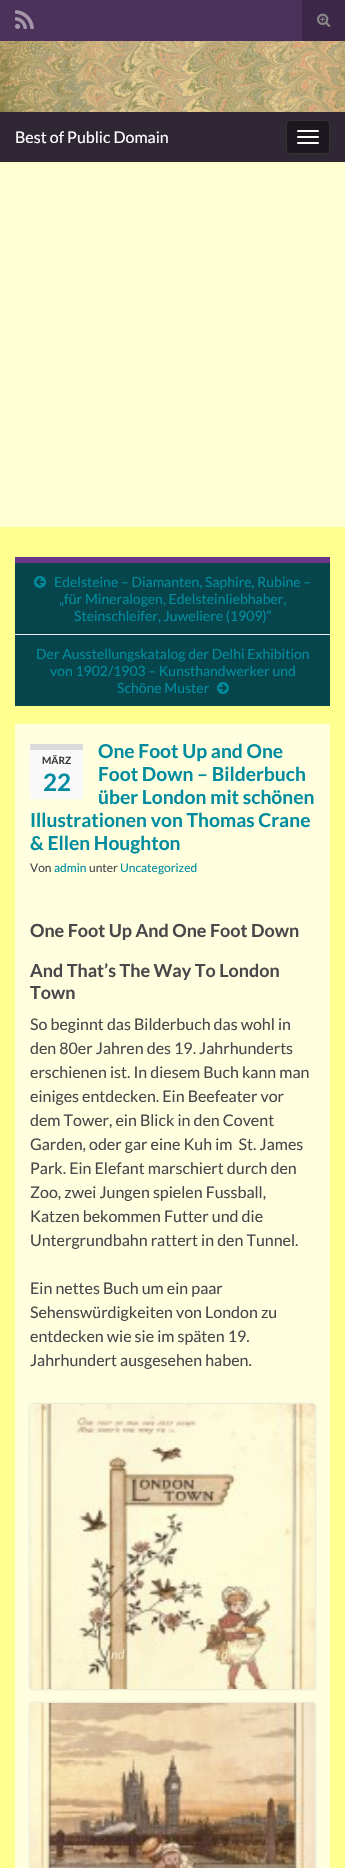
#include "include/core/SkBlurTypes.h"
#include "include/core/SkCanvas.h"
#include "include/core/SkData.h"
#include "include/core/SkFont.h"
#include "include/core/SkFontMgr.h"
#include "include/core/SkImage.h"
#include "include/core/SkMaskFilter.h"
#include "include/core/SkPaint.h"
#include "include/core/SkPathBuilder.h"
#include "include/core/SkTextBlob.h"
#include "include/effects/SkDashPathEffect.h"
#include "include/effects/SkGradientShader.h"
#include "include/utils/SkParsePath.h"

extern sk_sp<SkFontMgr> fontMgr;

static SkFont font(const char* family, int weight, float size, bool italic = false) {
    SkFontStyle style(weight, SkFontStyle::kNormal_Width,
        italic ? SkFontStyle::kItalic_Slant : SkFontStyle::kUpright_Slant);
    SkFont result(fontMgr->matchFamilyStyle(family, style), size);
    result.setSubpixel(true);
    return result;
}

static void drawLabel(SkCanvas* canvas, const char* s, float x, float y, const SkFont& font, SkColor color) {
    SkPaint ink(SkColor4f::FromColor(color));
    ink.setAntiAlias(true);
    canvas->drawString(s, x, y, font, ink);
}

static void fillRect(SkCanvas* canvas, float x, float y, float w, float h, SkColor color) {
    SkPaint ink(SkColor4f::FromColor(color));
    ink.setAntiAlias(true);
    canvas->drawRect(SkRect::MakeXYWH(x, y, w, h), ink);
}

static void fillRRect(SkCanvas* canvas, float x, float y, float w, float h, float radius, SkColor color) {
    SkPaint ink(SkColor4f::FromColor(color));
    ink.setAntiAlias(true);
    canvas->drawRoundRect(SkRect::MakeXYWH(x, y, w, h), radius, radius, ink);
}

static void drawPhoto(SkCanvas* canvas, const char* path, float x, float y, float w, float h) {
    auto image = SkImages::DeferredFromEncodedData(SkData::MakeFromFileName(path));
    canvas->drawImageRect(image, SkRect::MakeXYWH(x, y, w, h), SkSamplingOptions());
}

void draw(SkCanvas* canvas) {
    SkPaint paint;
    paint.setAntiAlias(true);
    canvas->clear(0xFFFFFFD2);
    fillRect(canvas, 0, 0, 302, 41, 0xFF4C315A);
    drawPhoto(canvas, "assets/img1.png", 15, 10, 19, 19);
    fillRect(canvas, 302, 0, 43, 41, 0xFF3D2748);
    drawPhoto(canvas, "assets/img2.png", 317, 13, 14, 14);
    drawPhoto(canvas, "assets/img3.png", 0, 41, 345, 71);
    fillRect(canvas, 0, 112, 345, 50, 0xFF2F2733);
    SkFont font1 = font("Lato", 400, 16);
    drawLabel(canvas, "Best of Public Domain", 15, 143, font1, 0xFFFFFFFF);
    paint.setColor(0xFF1C171F);
    canvas->drawRoundRect(SkRect::MakeXYWH(286.5f, 120.5f, 43, 33), 3.5f, 3.5f, paint);
    paint.setStroke(true);
    paint.setStrokeWidth(1);
    paint.setColor(0xFF333333);
    canvas->drawRoundRect(SkRect::MakeXYWH(286.5f, 120.5f, 43, 33), 3.5f, 3.5f, paint);
    fillRRect(canvas, 297, 130, 22, 2, 1, 0xFFFFFFFF);
    fillRRect(canvas, 297, 136, 22, 2, 1, 0xFFFFFFFF);
    fillRRect(canvas, 297, 142, 22, 2, 1, 0xFFFFFFFF);
    fillRect(canvas, 0, 527, 345, 1341, 0xFFFFFF90);
    fillRect(canvas, 15, 563, 315, 143, 0xFF06454C);
    fillRect(canvas, 15, 557, 315, 6, 0xFF6B3589);
    drawPhoto(canvas, "assets/img4.png", 34, 576, 12, 12);
    SkFont font2 = font("Lato", 400, 14);
    drawLabel(canvas, "Edelsteine – Diamanten, Saphire, Rubine –", 54, 587, font2, 0xFF008C9E);
    drawLabel(canvas, "„für Mineralogen, Edelsteinliebhaber,", 59, 604, font2, 0xFF008C9E);
    drawLabel(canvas, "Steinschleifer, Juweliere (1909)“", 74, 621, font2, 0xFF008C9E);
    fillRect(canvas, 15, 634, 315, 1, 0xFFEEEEEE);
    drawLabel(canvas, "Der Ausstellungskatalog der Delhi Exhibition", 36, 659, font2, 0xFF008C9E);
    drawLabel(canvas, "von 1902/1903 – Kunsthandwerker und", 50, 676, font2, 0xFF008C9E);
    drawLabel(canvas, "Schöne Muster", 117, 693, font2, 0xFF008C9E);
    drawPhoto(canvas, "assets/img5.png", 217, 682, 12, 12);
    fillRect(canvas, 15, 724, 315, 1144, 0xFFFFFFE0);
    SkFont font3 = font("Lato", 700, 19.25f);
    drawLabel(canvas, "One Foot Up and One", 98, 758, font3, 0xFF008C9E);
    drawLabel(canvas, "Foot Down – Bilderbuch", 98, 781, font3, 0xFF008C9E);
    drawLabel(canvas, "über London mit schönen", 98, 804, font3, 0xFF008C9E);
    drawLabel(canvas, "Illustrationen von Thomas Crane", 30, 827, font3, 0xFF008C9E);
    drawLabel(canvas, "& Ellen Houghton", 30, 850, font3, 0xFF008C9E);
    fillRect(canvas, 30, 750, 53, 49, 0xFFF9F9F9);
    fillRect(canvas, 30, 744, 53, 6, 0xFFDBDBDB);
    SkFont font4 = font("Lato", 700, 10);
    drawLabel(canvas, "MÄRZ", 42, 764, font4, 0xFF3B383D);
    SkFont font5 = font("Lato", 700, 24);
    drawLabel(canvas, "22", 43, 791, font5, 0xFF008C9E);
    SkFont font6 = font("Lato", 400, 12);
    drawLabel(canvas, "Von", 30, 872, font6, 0xFF4A474B);
    drawLabel(canvas, "admin", 54, 872, font6, 0xFF008C9E);
    drawLabel(canvas, "unter", 89, 872, font6, 0xFF4A474B);
    drawLabel(canvas, "Uncategorized", 120, 872, font6, 0xFF008C9E);
    SkFont font7 = font("Lato", 700, 18);
    drawLabel(canvas, "One Foot Up And One Foot Down", 30, 937, font7, 0xFF4A474B);
    drawLabel(canvas, "And That’s The Way To London", 30, 977, font7, 0xFF4A474B);
    drawLabel(canvas, "Town", 30, 999, font7, 0xFF4A474B);
    drawLabel(canvas, "So beginnt das Bilderbuch das wohl in", 30, 1030, font1, 0xFF4A474B);
    drawLabel(canvas, "den 80er Jahren des 19. Jahrhunderts", 30, 1054, font1, 0xFF4A474B);
    drawLabel(canvas, "erschienen ist. In diesem Buch kann man", 30, 1078, font1, 0xFF4A474B);
    drawLabel(canvas, "einiges entdecken. Ein Beefeater vor", 30, 1102, font1, 0xFF4A474B);
    drawLabel(canvas, "dem Tower, ein Blick in den Covent", 30, 1126, font1, 0xFF4A474B);
    drawLabel(canvas, "Garden, oder gar eine Kuh im  St. James", 30, 1150, font1, 0xFF4A474B);
    drawLabel(canvas, "Park. Ein Elefant marschiert durch den", 30, 1174, font1, 0xFF4A474B);
    drawLabel(canvas, "Zoo, zwei Jungen spielen Fussball,", 30, 1198, font1, 0xFF4A474B);
    drawLabel(canvas, "Katzen bekommen Futter und die", 30, 1222, font1, 0xFF4A474B);
    drawLabel(canvas, "Untergrundbahn rattert in den Tunnel.", 30, 1246, font1, 0xFF4A474B);
    drawLabel(canvas, "Ein nettes Buch um ein paar", 30, 1294, font1, 0xFF4A474B);
    drawLabel(canvas, "Sehenswürdigkeiten von London zu", 30, 1318, font1, 0xFF4A474B);
    drawLabel(canvas, "entdecken wie sie im späten 19.", 30, 1342, font1, 0xFF4A474B);
    drawLabel(canvas, "Jahrhundert ausgesehen haben.", 30, 1366, font1, 0xFF4A474B);
    paint.setStroke(false);
    paint.setColor(0xFFCCCCCC);
    paint.setMaskFilter(SkMaskFilter::MakeBlur(kNormal_SkBlurStyle, 1.5f));
    canvas->drawRoundRect(SkRect::MakeXYWH(30, 1404, 285, 285), 3, 3, paint);
    paint.setMaskFilter(nullptr);
    drawPhoto(canvas, "assets/img6.png", 30, 1404, 285, 285);
    SkFont font8 = font("Lato", 400, 13, true);
    drawLabel(canvas, "nd", 111, 1659, font8, 0xFFF0E7C3);
    drawLabel(canvas, "d", 221, 1659, font8, 0xFFF0E7C3);
    paint.setMaskFilter(SkMaskFilter::MakeBlur(kNormal_SkBlurStyle, 1.5f));
    canvas->drawRoundRect(SkRect::MakeXYWH(30, 1703, 285, 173), 3, 3, paint);
    paint.setMaskFilter(nullptr);
    drawPhoto(canvas, "assets/img7.png", 30, 1703, 285, 165);
}
